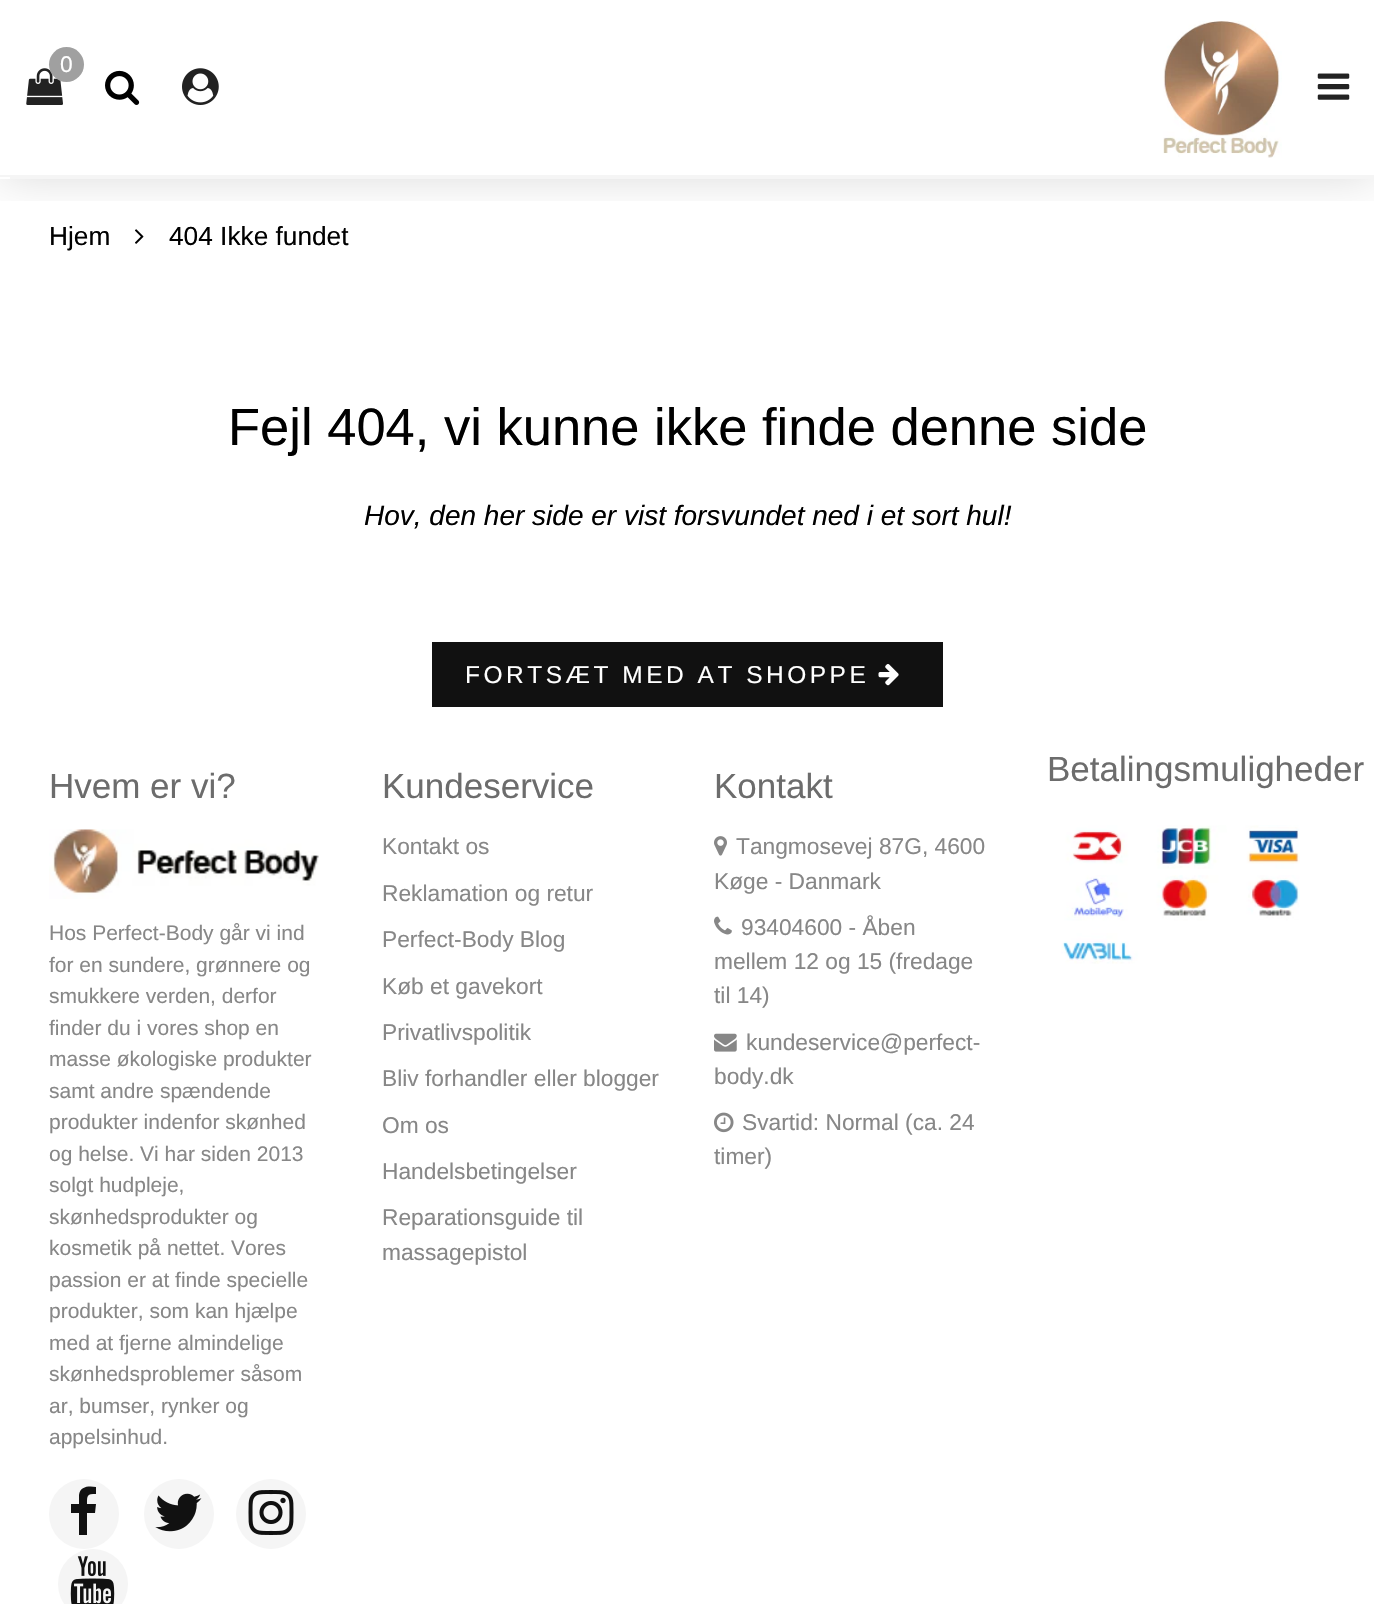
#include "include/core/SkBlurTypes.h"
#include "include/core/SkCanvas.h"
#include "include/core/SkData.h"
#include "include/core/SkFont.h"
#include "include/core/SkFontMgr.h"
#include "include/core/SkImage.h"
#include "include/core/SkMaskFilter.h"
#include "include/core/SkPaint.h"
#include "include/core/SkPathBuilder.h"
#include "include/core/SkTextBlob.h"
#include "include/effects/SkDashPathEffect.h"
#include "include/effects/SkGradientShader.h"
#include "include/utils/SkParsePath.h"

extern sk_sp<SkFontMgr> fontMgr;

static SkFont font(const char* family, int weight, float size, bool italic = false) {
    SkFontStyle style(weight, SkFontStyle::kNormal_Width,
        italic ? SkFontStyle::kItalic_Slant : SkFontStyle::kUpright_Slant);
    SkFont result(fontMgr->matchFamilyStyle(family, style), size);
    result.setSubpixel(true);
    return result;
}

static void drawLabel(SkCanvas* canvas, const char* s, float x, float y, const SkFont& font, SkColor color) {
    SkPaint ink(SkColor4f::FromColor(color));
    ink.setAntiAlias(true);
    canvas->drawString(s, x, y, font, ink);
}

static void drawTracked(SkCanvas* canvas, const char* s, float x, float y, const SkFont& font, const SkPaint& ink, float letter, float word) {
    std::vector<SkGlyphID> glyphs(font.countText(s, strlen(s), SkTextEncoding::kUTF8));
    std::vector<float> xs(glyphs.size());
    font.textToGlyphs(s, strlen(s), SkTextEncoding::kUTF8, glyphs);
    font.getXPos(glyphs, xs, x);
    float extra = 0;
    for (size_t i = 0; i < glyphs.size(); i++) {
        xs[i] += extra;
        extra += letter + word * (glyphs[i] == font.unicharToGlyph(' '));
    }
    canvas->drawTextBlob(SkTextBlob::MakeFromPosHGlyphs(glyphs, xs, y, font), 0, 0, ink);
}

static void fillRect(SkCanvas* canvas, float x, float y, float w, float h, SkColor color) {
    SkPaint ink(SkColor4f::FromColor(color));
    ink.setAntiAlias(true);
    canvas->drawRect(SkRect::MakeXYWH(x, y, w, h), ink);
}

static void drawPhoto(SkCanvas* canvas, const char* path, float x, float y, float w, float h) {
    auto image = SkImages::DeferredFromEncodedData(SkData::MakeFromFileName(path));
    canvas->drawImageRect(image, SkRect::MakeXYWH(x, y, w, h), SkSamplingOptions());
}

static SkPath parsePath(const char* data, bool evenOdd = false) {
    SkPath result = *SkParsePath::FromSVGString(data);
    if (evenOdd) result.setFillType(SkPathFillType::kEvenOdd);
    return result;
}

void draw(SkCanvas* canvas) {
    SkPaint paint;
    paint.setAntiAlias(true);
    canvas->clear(0xFFFFFFFF);
    canvas->save();
    canvas->clipRect(SkRect::MakeXYWH(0, 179, 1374, 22));
    paint.setColor(0x26000000);
    paint.setMaskFilter(SkMaskFilter::MakeBlur(kNormal_SkBlurStyle, 22));
    canvas->drawRect(SkRect::MakeXYWH(0, 0, 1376, 177), paint);
    paint.setMaskFilter(nullptr);
    canvas->restore();
    fillRect(canvas, 0, 175, 1374, 2, 0xFFF5F5F5);
    drawPhoto(canvas, "assets/img1.png", 26, 68, 37, 37);
    paint.setColor(0xFFA0A0A0);
    canvas->drawCircle(66.5f, 64.5f, 17.5f, paint);
    SkFont font1 = font("Liberation Sans", 400, 22.75f);
    drawLabel(canvas, "0", 60, 72, font1, 0xFFFFFFFF);
    drawPhoto(canvas, "assets/img2.png", 105, 70, 35, 35);
    drawPhoto(canvas, "assets/img3.png", 182, 68, 37, 37);
    drawPhoto(canvas, "assets/img4.png", 1163, 21, 119, 137);
    drawPhoto(canvas, "assets/img5.png", 1317, 73, 33, 27);
    fillRect(canvas, 10, 177, 1364, 2, 0xFFF5F5F5);
    SkFont font2 = font("Liberation Sans", 400, 26.25f);
    drawLabel(canvas, "Hjem", 49, 245, font2, 0xFF000000);
    drawPhoto(canvas, "assets/img6.png", 135, 229, 9, 15);
    drawLabel(canvas, "404 Ikke fundet", 169, 245, font2, 0xFF000000);
    SkFont font3 = font("Liberation Sans", 400, 52.5f);
    drawLabel(canvas, "Fejl 404, vi kunne ikke finde denne side", 228, 445, font3, 0xFF000000);
    SkFont font4 = font("Liberation Sans", 400, 28, true);
    drawLabel(canvas, "Hov, den her side er vist forsvundet ned i et sort hul!", 364, 525, font4, 0xFF000000);
    fillRect(canvas, 432, 642, 511, 65, 0xFF111111);
    SkFont font5 = font("Liberation Sans", 400, 24.5f);
    paint.setColor(0xFFFFFFFF);
    drawTracked(canvas, "FORTSÆT MED AT SHOPPE", 465, 683, font5, paint, 3.5f, 0);
    drawPhoto(canvas, "assets/img7.png", 878, 664, 21, 22);
    SkFont font6 = font("Liberation Sans", 400, 35);
    drawLabel(canvas, "Hvem er vi?", 49, 798, font6, 0xFF6C6C6C);
    drawPhoto(canvas, "assets/img8.png", 49, 829, 270, 70);
    SkFont font7 = font("Liberation Sans", 400, 21);
    drawLabel(canvas, "Hos Perfect-Body går vi ind", 49, 940, font7, 0xFF878787);
    drawLabel(canvas, "for en sundere, grønnere og", 49, 972, font7, 0xFF878787);
    drawLabel(canvas, "smukkere verden, derfor", 49, 1003, font7, 0xFF878787);
    drawLabel(canvas, "finder du i vores shop en", 49, 1035, font7, 0xFF878787);
    drawLabel(canvas, "masse økologiske produkter", 49, 1066, font7, 0xFF878787);
    drawLabel(canvas, "samt andre spændende", 49, 1098, font7, 0xFF878787);
    drawLabel(canvas, "produkter indenfor skønhed", 49, 1129, font7, 0xFF878787);
    drawLabel(canvas, "og helse. Vi har siden 2013", 49, 1161, font7, 0xFF878787);
    drawLabel(canvas, "solgt hudpleje,", 49, 1192, font7, 0xFF878787);
    drawLabel(canvas, "skønhedsprodukter og", 49, 1224, font7, 0xFF878787);
    drawLabel(canvas, "kosmetik på nettet. Vores", 49, 1255, font7, 0xFF878787);
    drawLabel(canvas, "passion er at finde specielle", 49, 1287, font7, 0xFF878787);
    drawLabel(canvas, "produkter, som kan hjælpe", 49, 1318, font7, 0xFF878787);
    drawLabel(canvas, "med at fjerne almindelige", 49, 1350, font7, 0xFF878787);
    drawLabel(canvas, "skønhedsproblemer såsom", 49, 1381, font7, 0xFF878787);
    drawLabel(canvas, "ar, bumser, rynker og", 49, 1413, font7, 0xFF878787);
    drawLabel(canvas, "appelsinhud.", 49, 1444, font7, 0xFF878787);
    paint.setColor(0xFFF5F5F5);
    canvas->drawCircle(84, 1514, 35, paint);
    paint.setColor(0xFF111111);
    canvas->drawPath(parsePath("M96 1487V1494C87 1494 87 1495 87 1504H96L95 1513H87V1535H79V1513H71V1504H79V1495C80 1486 89 1486 96 1487Z"), paint);
    paint.setColor(0xFFF5F5F5);
    canvas->drawCircle(179, 1514, 35, paint);
    drawPhoto(canvas, "assets/img9.png", 155, 1493, 47, 39);
    canvas->drawCircle(271, 1514, 35, paint);
    drawPhoto(canvas, "assets/img10.png", 248, 1490, 46, 45);
    canvas->drawCircle(93, 1584, 35, paint);
    drawPhoto(canvas, "assets/img11.png", 70, 1556, 45, 48);
    drawLabel(canvas, "Kundeservice", 382, 798, font6, 0xFF6C6C6C);
    drawLabel(canvas, "Kontakt os", 382, 854, font1, 0xFF878787);
    drawLabel(canvas, "Reklamation og retur", 382, 901, font1, 0xFF878787);
    drawLabel(canvas, "Perfect-Body Blog", 382, 947, font1, 0xFF878787);
    drawLabel(canvas, "Køb et gavekort", 382, 994, font1, 0xFF878787);
    drawLabel(canvas, "Privatlivspolitik", 382, 1040, font1, 0xFF878787);
    drawLabel(canvas, "Bliv forhandler eller blogger", 382, 1086, font1, 0xFF878787);
    drawLabel(canvas, "Om os", 382, 1133, font1, 0xFF878787);
    drawLabel(canvas, "Handelsbetingelser", 382, 1179, font1, 0xFF878787);
    drawLabel(canvas, "Reparationsguide til", 382, 1225, font1, 0xFF878787);
    drawLabel(canvas, "massagepistol", 382, 1260, font1, 0xFF878787);
    drawLabel(canvas, "Kontakt", 714, 798, font6, 0xFF6C6C6C);
    drawPhoto(canvas, "assets/img12.png", 714, 836, 13, 20);
    drawLabel(canvas, "Tangmosevej 87G, 4600", 736, 854, font1, 0xFF878787);
    drawLabel(canvas, "Køge - Danmark", 714, 889, font1, 0xFF878787);
    drawPhoto(canvas, "assets/img13.png", 714, 916, 18, 19);
    drawLabel(canvas, "93404600 - Åben", 741, 935, font1, 0xFF878787);
    drawLabel(canvas, "mellem 12 og 15 (fredage", 714, 969, font1, 0xFF878787);
    drawLabel(canvas, "til 14)", 714, 1003, font1, 0xFF878787);
    drawPhoto(canvas, "assets/img14.png", 714, 1033, 23, 19);
    drawLabel(canvas, "kundeservice@perfect-", 746, 1050, font1, 0xFF878787);
    drawLabel(canvas, "body.dk", 714, 1084, font1, 0xFF878787);
    drawPhoto(canvas, "assets/img15.png", 714, 1112, 20, 21);
    drawLabel(canvas, "Svartid: Normal (ca. 24", 742, 1130, font1, 0xFF878787);
    drawLabel(canvas, "timer)", 714, 1164, font1, 0xFF878787);
    drawLabel(canvas, "Betalingsmuligheder", 1047, 781, font6, 0xFF6C6C6C);
    drawPhoto(canvas, "assets/img16.png", 1061, 825, 239, 139);
}
